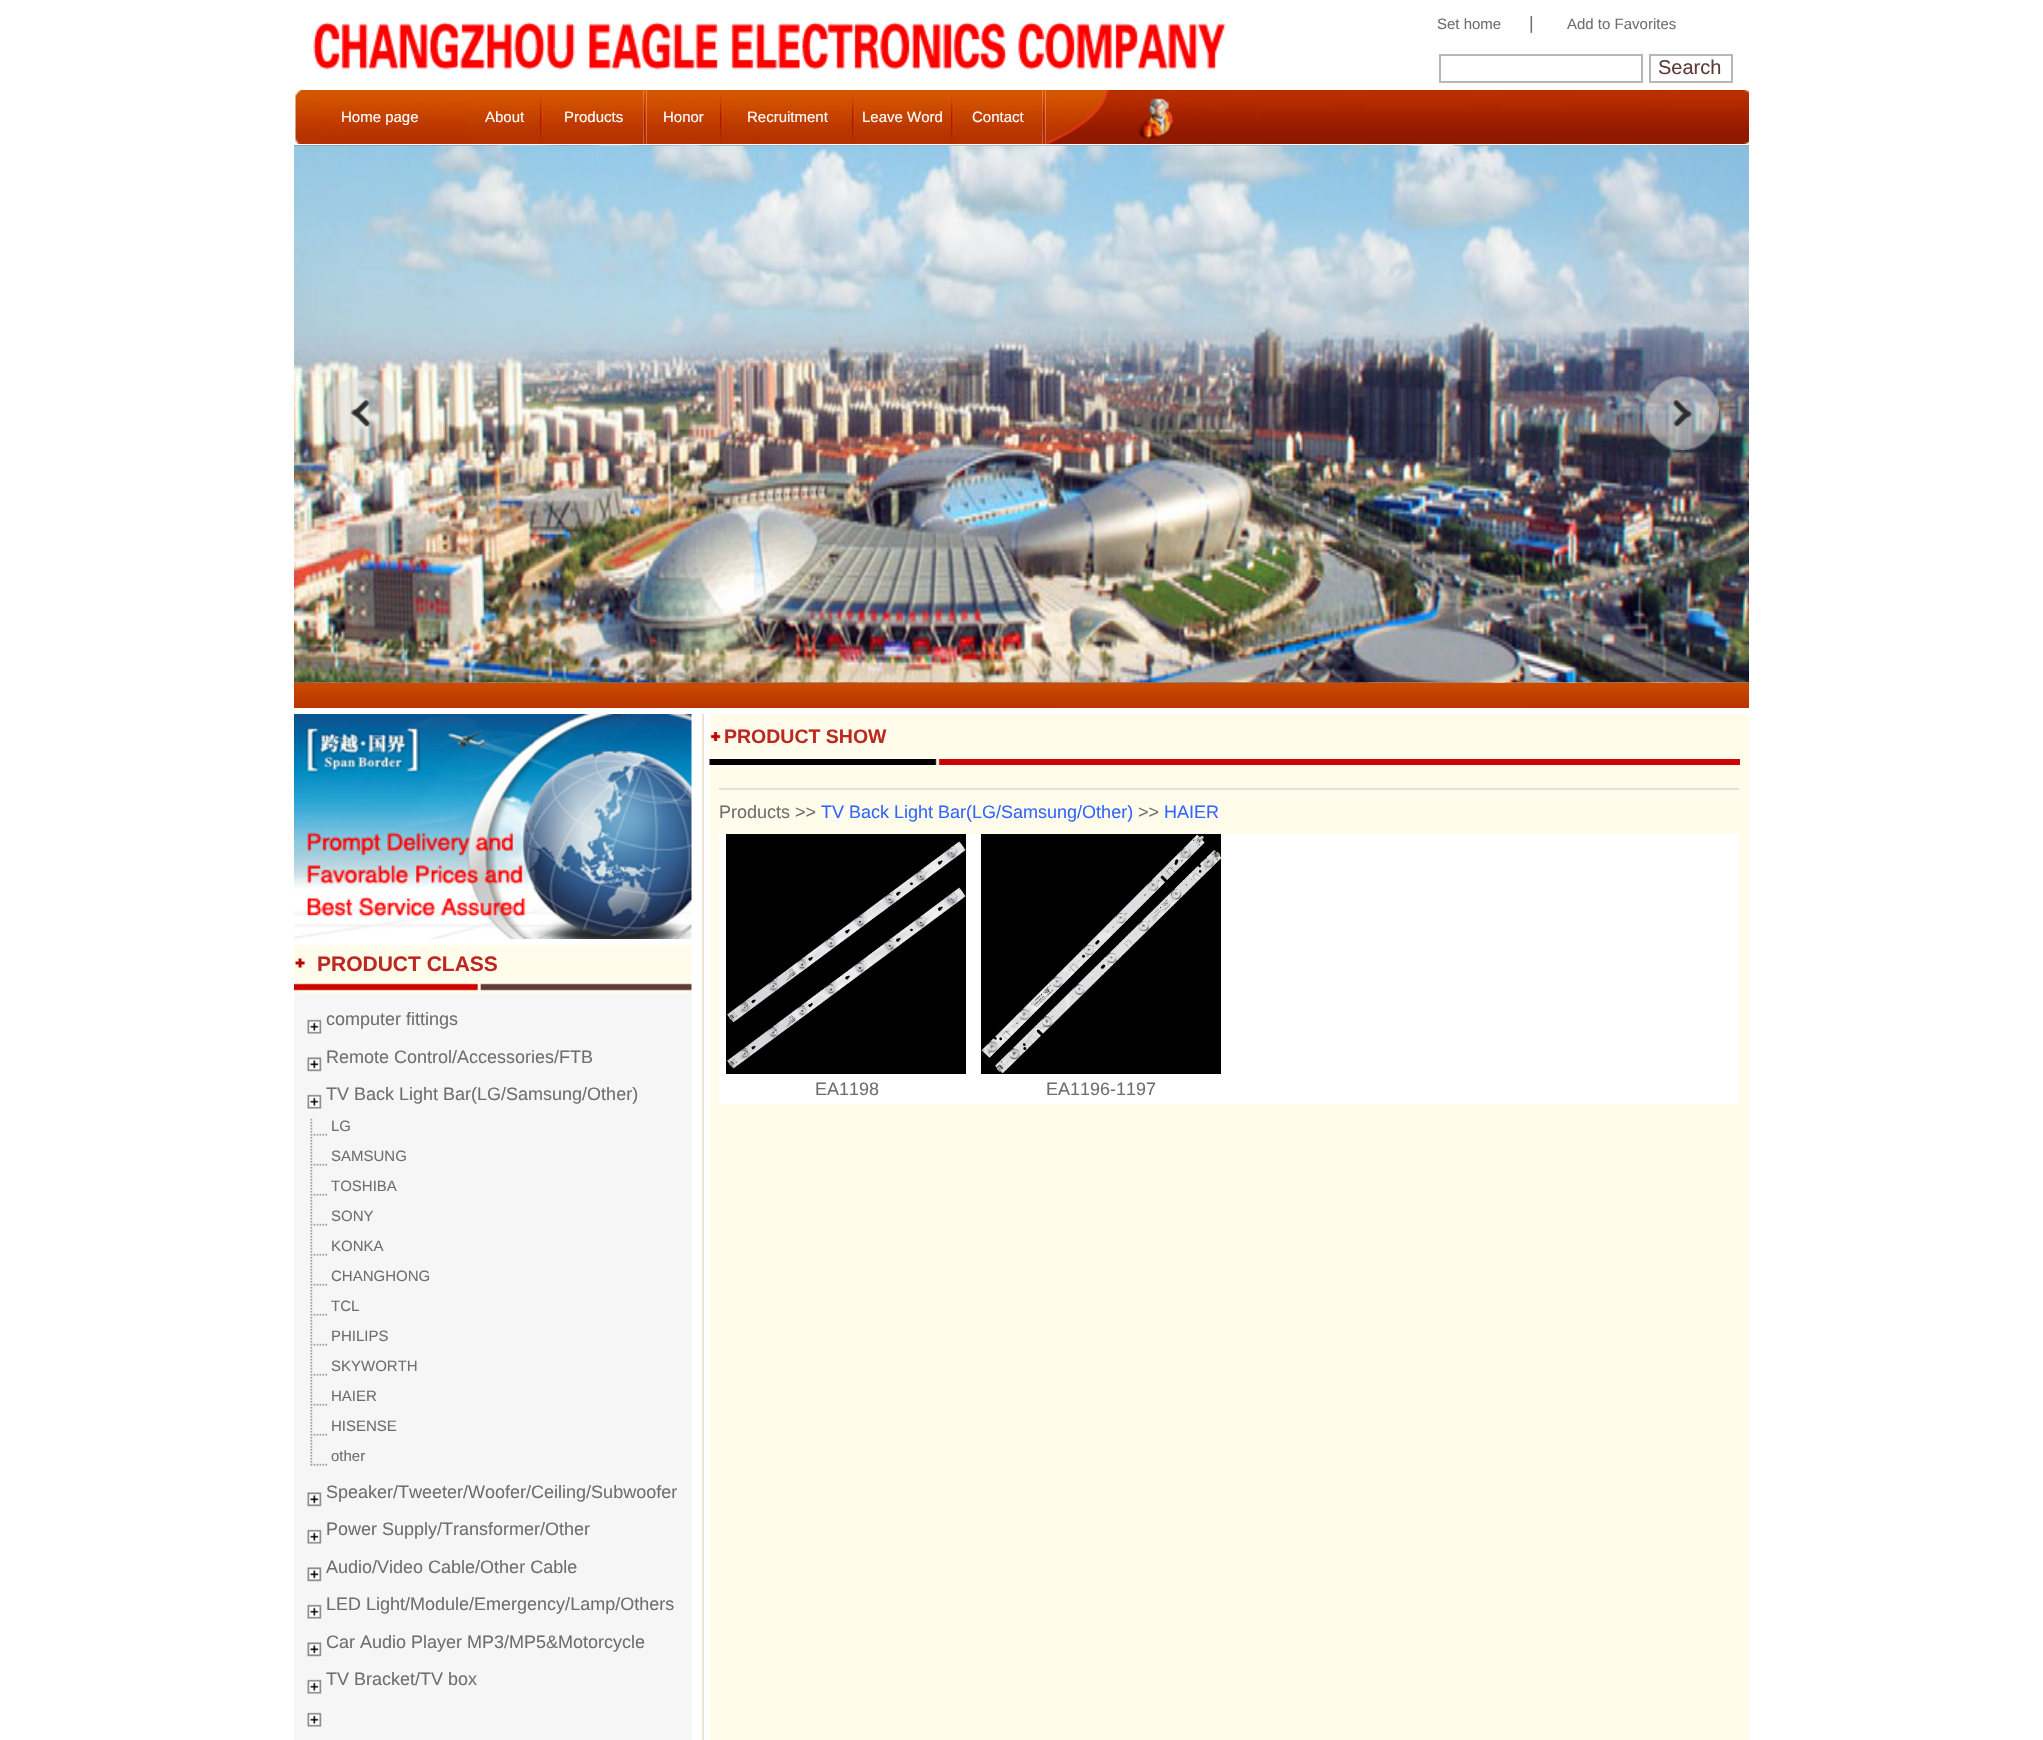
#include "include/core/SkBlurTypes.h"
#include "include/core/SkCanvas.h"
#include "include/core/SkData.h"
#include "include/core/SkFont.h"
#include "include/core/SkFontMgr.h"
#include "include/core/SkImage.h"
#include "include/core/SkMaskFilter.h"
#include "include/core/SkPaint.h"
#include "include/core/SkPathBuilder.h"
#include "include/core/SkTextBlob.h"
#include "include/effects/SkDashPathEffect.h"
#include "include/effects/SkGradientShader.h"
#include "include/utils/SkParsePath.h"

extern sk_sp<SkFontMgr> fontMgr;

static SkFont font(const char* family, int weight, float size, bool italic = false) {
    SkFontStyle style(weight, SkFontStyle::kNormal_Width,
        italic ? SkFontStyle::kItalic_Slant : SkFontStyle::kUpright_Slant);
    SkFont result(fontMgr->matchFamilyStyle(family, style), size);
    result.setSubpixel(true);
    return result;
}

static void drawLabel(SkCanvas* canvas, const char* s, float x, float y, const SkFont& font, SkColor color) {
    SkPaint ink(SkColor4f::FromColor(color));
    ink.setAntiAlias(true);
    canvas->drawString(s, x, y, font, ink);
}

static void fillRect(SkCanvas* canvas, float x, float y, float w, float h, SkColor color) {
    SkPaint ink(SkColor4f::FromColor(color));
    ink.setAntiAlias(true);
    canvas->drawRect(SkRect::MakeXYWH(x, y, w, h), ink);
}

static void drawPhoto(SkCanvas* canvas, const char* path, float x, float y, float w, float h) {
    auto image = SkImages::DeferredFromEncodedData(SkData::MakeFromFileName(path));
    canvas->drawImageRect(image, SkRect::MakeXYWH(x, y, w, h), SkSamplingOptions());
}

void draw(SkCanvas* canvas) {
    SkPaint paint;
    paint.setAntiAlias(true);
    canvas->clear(0xFFFFFFFF);
    drawPhoto(canvas, "assets/img1.png", 313, 22, 913, 48);
    SkFont font1 = font("Liberation Sans", 400, 15);
    drawLabel(canvas, "Set home", 1437, 29, font1, 0xFF6F6F6F);
    SkFont font2 = font("Liberation Sans", 400, 18);
    drawLabel(canvas, "|", 1529, 29, font2, 0xFF6F6F6F);
    drawLabel(canvas, "Add to Favorites", 1567, 29, font1, 0xFF6F6F6F);
    paint.setStroke(true);
    paint.setStrokeWidth(2);
    paint.setColor(0xFFB7B7B7);
    canvas->drawRect(SkRect::MakeXYWH(1440, 55, 202, 27), paint);
    canvas->drawRect(SkRect::MakeXYWH(1650, 55, 82, 27), paint);
    SkFont font3 = font("Liberation Sans", 400, 20);
    drawLabel(canvas, "Search", 1658, 74, font3, 0xFF5D3B39);
    drawPhoto(canvas, "assets/img2.png", 295, 90, 170, 54);
    drawLabel(canvas, "Home page", 341, 122, font1, 0xFFFFFFFF);
    drawPhoto(canvas, "assets/img3.png", 465, 90, 3, 54);
    drawPhoto(canvas, "assets/img4.png", 468, 90, 72, 54);
    drawLabel(canvas, "About", 485, 122, font1, 0xFFFFFFFF);
    drawPhoto(canvas, "assets/img5.png", 540, 90, 3, 54);
    drawPhoto(canvas, "assets/img6.png", 543, 90, 101, 54);
    drawLabel(canvas, "Products", 564, 122, font1, 0xFFFFFFFF);
    drawPhoto(canvas, "assets/img8.png", 646, 90, 74, 54);
    drawPhoto(canvas, "assets/img7.png", 643, 90, 4, 54);
    drawLabel(canvas, "Honor", 663, 122, font1, 0xFFFFFFFF);
    drawPhoto(canvas, "assets/img9.png", 720, 90, 3, 54);
    drawPhoto(canvas, "assets/img10.png", 723, 90, 129, 54);
    drawLabel(canvas, "Recruitment", 747, 122, font1, 0xFFFFFFFF);
    drawPhoto(canvas, "assets/img5.png", 852, 90, 3, 54);
    drawPhoto(canvas, "assets/img11.png", 855, 90, 96, 54);
    drawLabel(canvas, "Leave Word", 862, 122, font1, 0xFFFFFFFF);
    drawPhoto(canvas, "assets/img5.png", 951, 90, 3, 54);
    drawPhoto(canvas, "assets/img12.png", 954, 90, 89, 54);
    drawLabel(canvas, "Contact", 972, 122, font1, 0xFFFFFFFF);
    drawPhoto(canvas, "assets/img14.png", 1045, 90, 704, 54);
    drawPhoto(canvas, "assets/img13.png", 1042, 90, 4, 54);
    drawPhoto(canvas, "assets/img21.png", 294, 682, 1455, 26);
    drawPhoto(canvas, "assets/img15.png", 294, 145, 1455, 538);
    drawPhoto(canvas, "assets/img16.png", 294, 145, 1455, 538);
    drawPhoto(canvas, "assets/img17.png", 294, 145, 1455, 538);
    drawPhoto(canvas, "assets/img18.png", 294, 145, 1455, 538);
    drawPhoto(canvas, "assets/img19.png", 324, 376, 74, 74);
    drawPhoto(canvas, "assets/img20.png", 1645, 376, 74, 74);
    fillRect(canvas, 702, 714, 2, 1026, 0xFFEAE5CF);
    fillRect(canvas, 710, 714, 1039, 1026, 0xFFFFFCEB);
    drawPhoto(canvas, "assets/img22.png", 709, 732, 12, 9);
    SkFont font4 = font("Liberation Sans", 700, 19.5f);
    drawLabel(canvas, "PRODUCT SHOW", 724, 743, font4, 0xFFBC2822);
    drawPhoto(canvas, "assets/img23.png", 709, 759, 1031, 6);
    fillRect(canvas, 719, 788, 1020, 2, 0xFFE1E1E1);
    drawLabel(canvas, "Products >>", 719, 818, font2, 0xFF6F6F6F);
    drawLabel(canvas, "TV Back Light Bar(LG/Samsung/Other)", 821, 818, font2, 0xFF3366FF);
    drawLabel(canvas, ">>", 1138, 818, font2, 0xFF6F6F6F);
    drawLabel(canvas, "HAIER", 1164, 818, font2, 0xFF3366FF);
    fillRect(canvas, 719, 834, 1020, 270, 0xFFFFFFFF);
    drawPhoto(canvas, "assets/img24.png", 726, 834, 240, 240);
    drawPhoto(canvas, "assets/img25.png", 981, 834, 240, 240);
    drawLabel(canvas, "EA1198", 815, 1095, font2, 0xFF6F6F6F);
    drawLabel(canvas, "EA1196-1197", 1046, 1095, font2, 0xFF6F6F6F);
    drawPhoto(canvas, "assets/img26.png", 294, 714, 398, 225);
    fillRect(canvas, 294, 945, 398, 36, 0xFFFFFCEB);
    drawPhoto(canvas, "assets/img27.png", 294, 958, 11, 10);
    SkFont font5 = font("Liberation Sans", 700, 21);
    drawLabel(canvas, "PRODUCT CLASS", 317, 971, font5, 0xFFBC2822);
    drawPhoto(canvas, "assets/img28.png", 294, 981, 398, 12);
    fillRect(canvas, 294, 993, 398, 747, 0xFFF6F6F6);
    drawPhoto(canvas, "assets/img29.png", 307, 1019, 15, 15);
    drawLabel(canvas, "computer fittings", 326, 1025, font2, 0xFF6F6F6F);
    drawPhoto(canvas, "assets/img30.png", 307, 1057, 15, 15);
    drawLabel(canvas, "Remote Control/Accessories/FTB", 326, 1063, font2, 0xFF6F6F6F);
    drawPhoto(canvas, "assets/img29.png", 307, 1094, 15, 15);
    drawLabel(canvas, "TV Back Light Bar(LG/Samsung/Other)", 326, 1100, font2, 0xFF6F6F6F);
    drawPhoto(canvas, "assets/img31.png", 310, 1118, 17, 30);
    drawLabel(canvas, "LG", 331, 1131, font1, 0xFF6F6F6F);
    drawPhoto(canvas, "assets/img31.png", 310, 1148, 17, 30);
    drawLabel(canvas, "SAMSUNG", 331, 1161, font1, 0xFF6F6F6F);
    drawPhoto(canvas, "assets/img31.png", 310, 1178, 17, 30);
    drawLabel(canvas, "TOSHIBA", 331, 1191, font1, 0xFF6F6F6F);
    drawPhoto(canvas, "assets/img31.png", 310, 1208, 17, 30);
    drawLabel(canvas, "SONY", 331, 1221, font1, 0xFF6F6F6F);
    drawPhoto(canvas, "assets/img31.png", 310, 1238, 17, 30);
    drawLabel(canvas, "KONKA", 331, 1251, font1, 0xFF6F6F6F);
    drawPhoto(canvas, "assets/img31.png", 310, 1268, 17, 30);
    drawLabel(canvas, "CHANGHONG", 331, 1281, font1, 0xFF6F6F6F);
    drawPhoto(canvas, "assets/img31.png", 310, 1298, 17, 30);
    drawLabel(canvas, "TCL", 331, 1311, font1, 0xFF6F6F6F);
    drawPhoto(canvas, "assets/img31.png", 310, 1328, 17, 30);
    drawLabel(canvas, "PHILIPS", 331, 1341, font1, 0xFF6F6F6F);
    drawPhoto(canvas, "assets/img31.png", 310, 1358, 17, 30);
    drawLabel(canvas, "SKYWORTH", 331, 1371, font1, 0xFF6F6F6F);
    drawPhoto(canvas, "assets/img31.png", 310, 1388, 17, 30);
    drawLabel(canvas, "HAIER", 331, 1401, font1, 0xFF6F6F6F);
    drawPhoto(canvas, "assets/img31.png", 310, 1418, 17, 30);
    drawLabel(canvas, "HISENSE", 331, 1431, font1, 0xFF6F6F6F);
    drawPhoto(canvas, "assets/img32.png", 310, 1448, 17, 18);
    drawLabel(canvas, "other", 331, 1461, font1, 0xFF6F6F6F);
    drawPhoto(canvas, "assets/img30.png", 307, 1492, 15, 15);
    drawLabel(canvas, "Speaker/Tweeter/Woofer/Ceiling/Subwoofer", 326, 1498, font2, 0xFF6F6F6F);
    drawPhoto(canvas, "assets/img29.png", 307, 1529, 15, 15);
    drawLabel(canvas, "Power Supply/Transformer/Other", 326, 1535, font2, 0xFF6F6F6F);
    drawPhoto(canvas, "assets/img30.png", 307, 1567, 15, 15);
    drawLabel(canvas, "Audio/Video Cable/Other Cable", 326, 1573, font2, 0xFF6F6F6F);
    drawPhoto(canvas, "assets/img29.png", 307, 1604, 15, 15);
    drawLabel(canvas, "LED Light/Module/Emergency/Lamp/Others", 326, 1610, font2, 0xFF6F6F6F);
    drawPhoto(canvas, "assets/img30.png", 307, 1642, 15, 15);
    drawLabel(canvas, "Car Audio Player MP3/MP5&Motorcycle", 326, 1648, font2, 0xFF6F6F6F);
    drawPhoto(canvas, "assets/img29.png", 307, 1679, 15, 15);
    drawLabel(canvas, "TV Bracket/TV box", 326, 1685, font2, 0xFF6F6F6F);
    drawPhoto(canvas, "assets/img29.png", 307, 1712, 15, 15);
}
